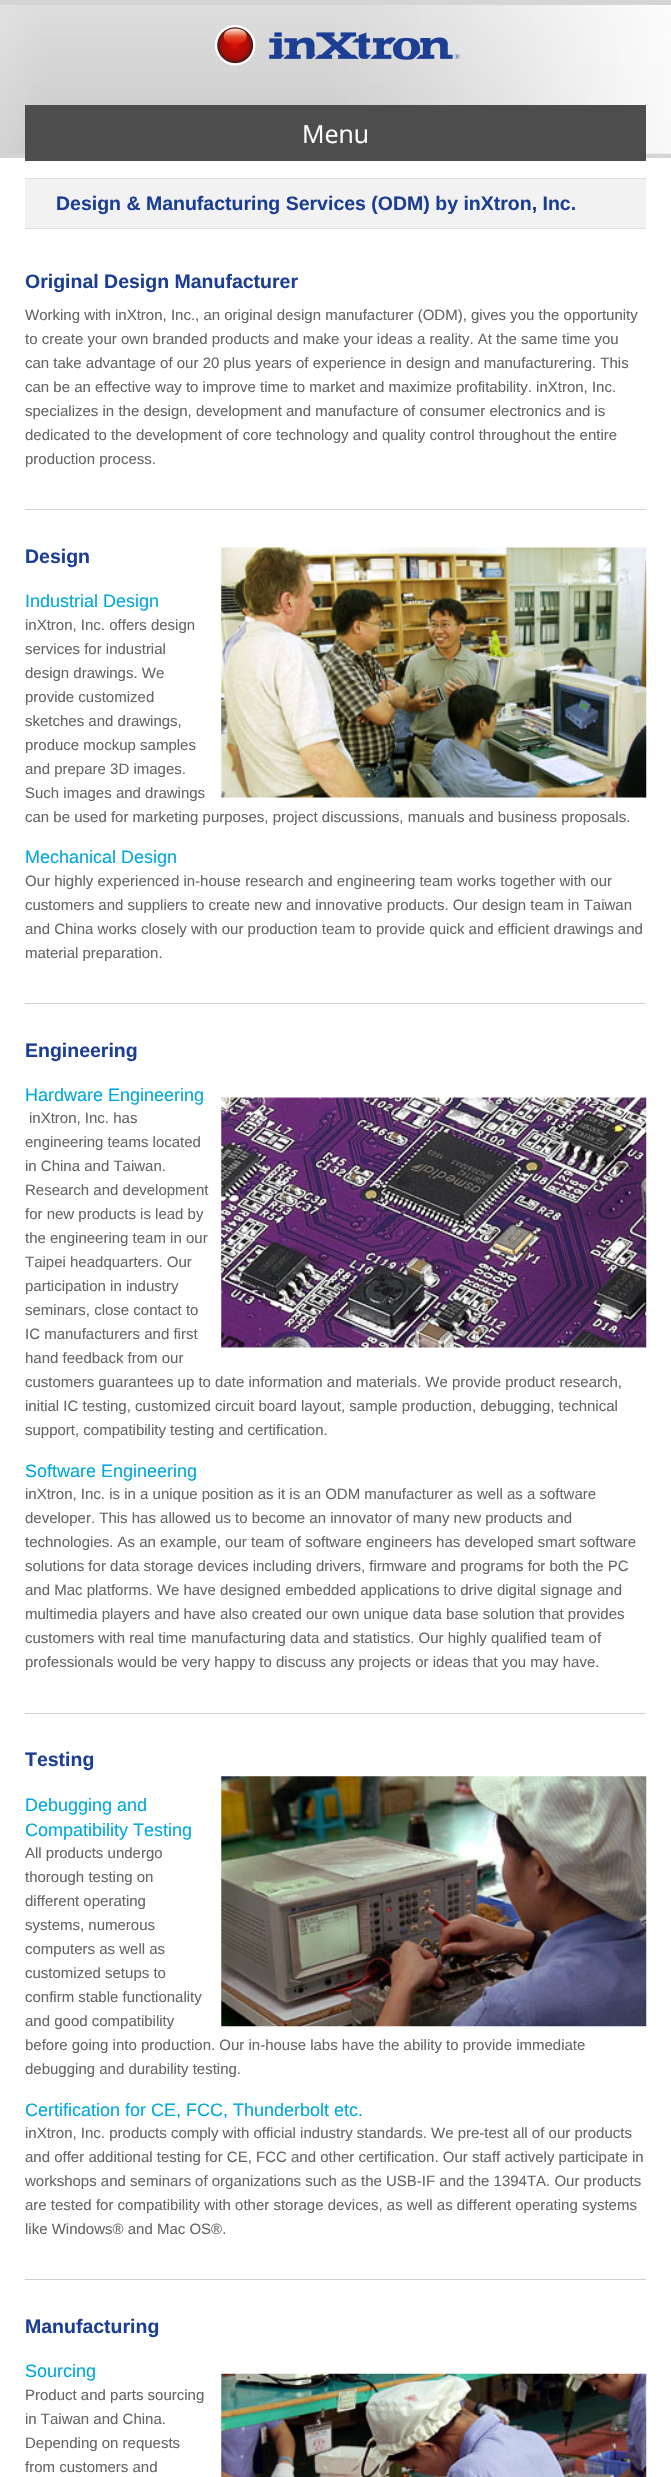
#include "include/core/SkBlurTypes.h"
#include "include/core/SkCanvas.h"
#include "include/core/SkData.h"
#include "include/core/SkFont.h"
#include "include/core/SkFontMgr.h"
#include "include/core/SkImage.h"
#include "include/core/SkMaskFilter.h"
#include "include/core/SkPaint.h"
#include "include/core/SkPathBuilder.h"
#include "include/core/SkTextBlob.h"
#include "include/effects/SkDashPathEffect.h"
#include "include/effects/SkGradientShader.h"
#include "include/utils/SkParsePath.h"

extern sk_sp<SkFontMgr> fontMgr;

static SkFont font(const char* family, int weight, float size, bool italic = false) {
    SkFontStyle style(weight, SkFontStyle::kNormal_Width,
        italic ? SkFontStyle::kItalic_Slant : SkFontStyle::kUpright_Slant);
    SkFont result(fontMgr->matchFamilyStyle(family, style), size);
    result.setSubpixel(true);
    return result;
}

static void drawLabel(SkCanvas* canvas, const char* s, float x, float y, const SkFont& font, SkColor color) {
    SkPaint ink(SkColor4f::FromColor(color));
    ink.setAntiAlias(true);
    canvas->drawString(s, x, y, font, ink);
}

static void fillRect(SkCanvas* canvas, float x, float y, float w, float h, SkColor color) {
    SkPaint ink(SkColor4f::FromColor(color));
    ink.setAntiAlias(true);
    canvas->drawRect(SkRect::MakeXYWH(x, y, w, h), ink);
}

static void drawPhoto(SkCanvas* canvas, const char* path, float x, float y, float w, float h) {
    auto image = SkImages::DeferredFromEncodedData(SkData::MakeFromFileName(path));
    canvas->drawImageRect(image, SkRect::MakeXYWH(x, y, w, h), SkSamplingOptions());
}

void draw(SkCanvas* canvas) {
    SkPaint paint;
    paint.setAntiAlias(true);
    canvas->clear(0xFFFFFFFF);
    fillRect(canvas, 0, 0, 671, 158, 0xFFD5D5D5);
    drawPhoto(canvas, "assets/img1.png", 0, 5, 671, 149);
    drawPhoto(canvas, "assets/img2.png", 214, 25, 246, 41);
    fillRect(canvas, 25, 105, 621, 56, 0xFF4D4D4D);
    SkFont font1 = font("Open Sans", 400, 25);
    drawLabel(canvas, "Menu", 302, 143, font1, 0xFFFFFFFF);
    fillRect(canvas, 25, 179, 621, 49, 0xFFF2F2F2);
    fillRect(canvas, 25, 178, 621, 1, 0xFFDEDEDE);
    fillRect(canvas, 25, 228, 621, 1, 0xFFDEDEDE);
    SkFont font2 = font("Liberation Sans", 700, 19.5f);
    drawLabel(canvas, "Design & Manufacturing Services (ODM) by inXtron, Inc.", 56, 210, font2, 0xFF1C3F95);
    drawLabel(canvas, "Original Design Manufacturer", 25, 288, font2, 0xFF1C3F95);
    SkFont font3 = font("Liberation Sans", 400, 15);
    drawLabel(canvas, "Working with inXtron, Inc., an original design manufacturer (ODM), gives you the opportunity", 25, 320, font3, 0xFF666666);
    drawLabel(canvas, "to create your own branded products and make your ideas a reality. At the same time you", 25, 344, font3, 0xFF666666);
    drawLabel(canvas, "can take advantage of our 20 plus years of experience in design and manufacturering. This", 25, 368, font3, 0xFF666666);
    drawLabel(canvas, "can be an effective way to improve time to market and maximize profitability. inXtron, Inc.", 25, 392, font3, 0xFF666666);
    drawLabel(canvas, "specializes in the design, development and manufacture of consumer electronics and is", 25, 416, font3, 0xFF666666);
    drawLabel(canvas, "dedicated to the development of core technology and quality control throughout the entire", 25, 440, font3, 0xFF666666);
    drawLabel(canvas, "production process.", 25, 464, font3, 0xFF666666);
    fillRect(canvas, 25, 509, 621, 1, 0xFFD1D1D1);
    drawLabel(canvas, "Design", 25, 563, font2, 0xFF1C3F95);
    drawPhoto(canvas, "assets/img3.png", 221, 547, 426, 251);
    SkFont font4 = font("Liberation Sans", 400, 18);
    drawLabel(canvas, "Industrial Design", 25, 607, font4, 0xFF00A8DE);
    drawLabel(canvas, "inXtron, Inc. offers design", 25, 630, font3, 0xFF666666);
    drawLabel(canvas, "services for industrial", 25, 654, font3, 0xFF666666);
    drawLabel(canvas, "design drawings. We", 25, 678, font3, 0xFF666666);
    drawLabel(canvas, "provide customized", 25, 702, font3, 0xFF666666);
    drawLabel(canvas, "sketches and drawings,", 25, 726, font3, 0xFF666666);
    drawLabel(canvas, "produce mockup samples", 25, 750, font3, 0xFF666666);
    drawLabel(canvas, "and prepare 3D images.", 25, 774, font3, 0xFF666666);
    drawLabel(canvas, "Such images and drawings", 25, 798, font3, 0xFF666666);
    drawLabel(canvas, "can be used for marketing purposes, project discussions, manuals and business proposals.", 25, 822, font3, 0xFF666666);
    drawLabel(canvas, "Mechanical Design", 25, 863, font4, 0xFF00A8DE);
    drawLabel(canvas, "Our highly experienced in-house research and engineering team works together with our", 25, 886, font3, 0xFF666666);
    drawLabel(canvas, "customers and suppliers to create new and innovative products. Our design team in Taiwan", 25, 910, font3, 0xFF666666);
    drawLabel(canvas, "and China works closely with our production team to provide quick and efficient drawings and", 25, 934, font3, 0xFF666666);
    drawLabel(canvas, "material preparation.", 25, 958, font3, 0xFF666666);
    fillRect(canvas, 25, 1003, 621, 1, 0xFFD1D1D1);
    drawLabel(canvas, "Engineering", 25, 1057, font2, 0xFF1C3F95);
    drawPhoto(canvas, "assets/img4.png", 221, 1097, 426, 251);
    drawLabel(canvas, "Hardware Engineering", 25, 1101, font4, 0xFF00A8DE);
    drawLabel(canvas, "inXtron, Inc. has", 29, 1123, font3, 0xFF666666);
    drawLabel(canvas, "engineering teams located", 25, 1147, font3, 0xFF666666);
    drawLabel(canvas, "in China and Taiwan.", 25, 1171, font3, 0xFF666666);
    drawLabel(canvas, "Research and development", 25, 1195, font3, 0xFF666666);
    drawLabel(canvas, "for new products is lead by", 25, 1219, font3, 0xFF666666);
    drawLabel(canvas, "the engineering team in our", 25, 1243, font3, 0xFF666666);
    drawLabel(canvas, "Taipei headquarters. Our", 25, 1267, font3, 0xFF666666);
    drawLabel(canvas, "participation in industry", 25, 1291, font3, 0xFF666666);
    drawLabel(canvas, "seminars, close contact to", 25, 1315, font3, 0xFF666666);
    drawLabel(canvas, "IC manufacturers and first", 25, 1339, font3, 0xFF666666);
    drawLabel(canvas, "hand feedback from our", 25, 1363, font3, 0xFF666666);
    drawLabel(canvas, "customers guarantees up to date information and materials. We provide product research,", 25, 1387, font3, 0xFF666666);
    drawLabel(canvas, "initial IC testing, customized circuit board layout, sample production, debugging, technical", 25, 1411, font3, 0xFF666666);
    drawLabel(canvas, "support, compatibility testing and certification.", 25, 1435, font3, 0xFF666666);
    drawLabel(canvas, "Software Engineering", 25, 1477, font4, 0xFF00A8DE);
    drawLabel(canvas, "inXtron, Inc. is in a unique position as it is an ODM manufacturer as well as a software", 25, 1499, font3, 0xFF666666);
    drawLabel(canvas, "developer. This has allowed us to become an innovator of many new products and", 25, 1523, font3, 0xFF666666);
    drawLabel(canvas, "technologies. As an example, our team of software engineers has developed smart software", 25, 1547, font3, 0xFF666666);
    drawLabel(canvas, "solutions for data storage devices including drivers, firmware and programs for both the PC", 25, 1571, font3, 0xFF666666);
    drawLabel(canvas, "and Mac platforms. We have designed embedded applications to drive digital signage and", 25, 1595, font3, 0xFF666666);
    drawLabel(canvas, "multimedia players and have also created our own unique data base solution that provides", 25, 1619, font3, 0xFF666666);
    drawLabel(canvas, "customers with real time manufacturing data and statistics. Our highly qualified team of", 25, 1643, font3, 0xFF666666);
    drawLabel(canvas, "professionals would be very happy to discuss any projects or ideas that you may have.", 25, 1667, font3, 0xFF666666);
    fillRect(canvas, 25, 1713, 621, 1, 0xFFD1D1D1);
    drawLabel(canvas, "Testing", 25, 1766, font2, 0xFF1C3F95);
    drawPhoto(canvas, "assets/img5.png", 221, 1776, 426, 251);
    drawLabel(canvas, "Debugging and", 25, 1811, font4, 0xFF00A8DE);
    drawLabel(canvas, "Compatibility Testing", 25, 1836, font4, 0xFF00A8DE);
    drawLabel(canvas, "All products undergo", 25, 1858, font3, 0xFF666666);
    drawLabel(canvas, "thorough testing on", 25, 1882, font3, 0xFF666666);
    drawLabel(canvas, "different operating", 25, 1906, font3, 0xFF666666);
    drawLabel(canvas, "systems, numerous", 25, 1930, font3, 0xFF666666);
    drawLabel(canvas, "computers as well as", 25, 1954, font3, 0xFF666666);
    drawLabel(canvas, "customized setups to", 25, 1978, font3, 0xFF666666);
    drawLabel(canvas, "confirm stable functionality", 25, 2002, font3, 0xFF666666);
    drawLabel(canvas, "and good compatibility", 25, 2026, font3, 0xFF666666);
    drawLabel(canvas, "before going into production. Our in-house labs have the ability to provide immediate", 25, 2050, font3, 0xFF666666);
    drawLabel(canvas, "debugging and durability testing.", 25, 2074, font3, 0xFF666666);
    drawLabel(canvas, "Certification for CE, FCC, Thunderbolt etc.", 25, 2116, font4, 0xFF00A8DE);
    drawLabel(canvas, "inXtron, Inc. products comply with official industry standards. We pre-test all of our products", 25, 2138, font3, 0xFF666666);
    drawLabel(canvas, "and offer additional testing for CE, FCC and other certification. Our staff actively participate in", 25, 2162, font3, 0xFF666666);
    drawLabel(canvas, "workshops and seminars of organizations such as the USB-IF and the 1394TA. Our products", 25, 2186, font3, 0xFF666666);
    drawLabel(canvas, "are tested for compatibility with other storage devices, as well as different operating systems", 25, 2210, font3, 0xFF666666);
    drawLabel(canvas, "like Windows® and Mac OS®.", 25, 2234, font3, 0xFF666666);
    fillRect(canvas, 25, 2279, 621, 1, 0xFFD1D1D1);
    drawLabel(canvas, "Manufacturing", 25, 2333, font2, 0xFF1C3F95);
    drawPhoto(canvas, "assets/img6.png", 221, 2373, 426, 104);
    drawLabel(canvas, "Sourcing", 25, 2377, font4, 0xFF00A8DE);
    drawLabel(canvas, "Product and parts sourcing", 25, 2400, font3, 0xFF666666);
    drawLabel(canvas, "in Taiwan and China.", 25, 2424, font3, 0xFF666666);
    drawLabel(canvas, "Depending on requests", 25, 2448, font3, 0xFF666666);
    drawLabel(canvas, "from customers and", 25, 2472, font3, 0xFF666666);
}
